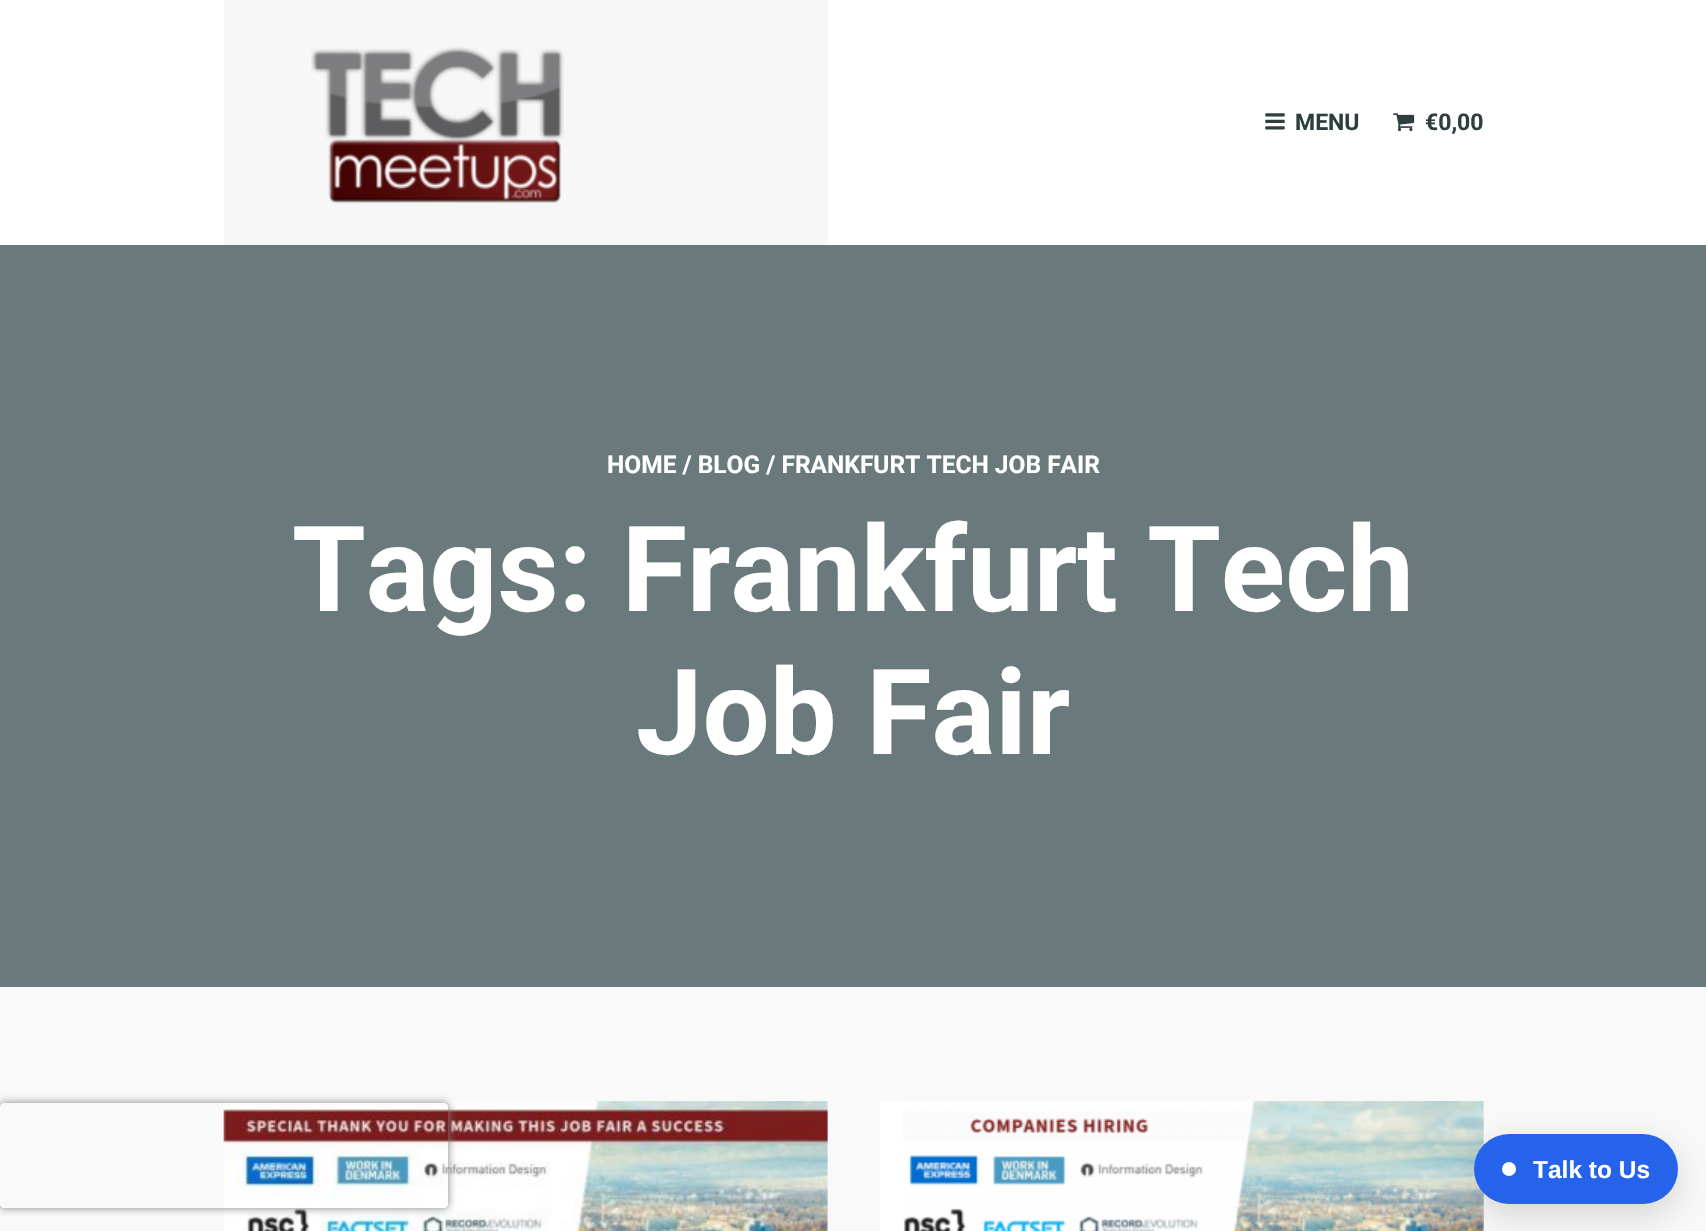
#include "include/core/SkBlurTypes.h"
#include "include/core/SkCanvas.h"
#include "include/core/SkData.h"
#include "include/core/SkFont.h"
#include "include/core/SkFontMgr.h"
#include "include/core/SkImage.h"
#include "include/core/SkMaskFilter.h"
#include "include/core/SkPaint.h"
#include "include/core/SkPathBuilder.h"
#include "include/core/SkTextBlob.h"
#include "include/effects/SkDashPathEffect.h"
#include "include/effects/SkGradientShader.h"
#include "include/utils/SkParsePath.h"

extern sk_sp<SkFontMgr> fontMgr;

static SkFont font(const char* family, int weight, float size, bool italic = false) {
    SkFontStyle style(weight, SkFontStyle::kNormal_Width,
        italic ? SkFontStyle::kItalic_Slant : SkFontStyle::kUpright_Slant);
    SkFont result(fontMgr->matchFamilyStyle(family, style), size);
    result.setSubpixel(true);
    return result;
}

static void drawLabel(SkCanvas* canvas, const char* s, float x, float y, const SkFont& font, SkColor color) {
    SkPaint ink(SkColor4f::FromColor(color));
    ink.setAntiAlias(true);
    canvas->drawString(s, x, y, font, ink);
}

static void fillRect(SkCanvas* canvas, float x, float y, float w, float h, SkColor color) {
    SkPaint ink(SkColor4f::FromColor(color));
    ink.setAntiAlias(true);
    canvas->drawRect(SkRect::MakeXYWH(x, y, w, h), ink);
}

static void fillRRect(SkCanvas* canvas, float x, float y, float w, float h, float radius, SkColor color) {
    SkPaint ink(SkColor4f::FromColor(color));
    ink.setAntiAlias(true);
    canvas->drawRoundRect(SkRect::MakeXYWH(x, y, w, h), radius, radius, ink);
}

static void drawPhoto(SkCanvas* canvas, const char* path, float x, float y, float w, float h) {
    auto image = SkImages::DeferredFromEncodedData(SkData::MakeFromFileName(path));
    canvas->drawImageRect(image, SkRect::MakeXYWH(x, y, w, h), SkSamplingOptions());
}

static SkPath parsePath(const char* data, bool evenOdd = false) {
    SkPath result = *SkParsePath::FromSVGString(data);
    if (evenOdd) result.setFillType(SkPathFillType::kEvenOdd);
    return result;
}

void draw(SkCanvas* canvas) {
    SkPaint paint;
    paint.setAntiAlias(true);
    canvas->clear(0xFFF9F9F9);
    fillRect(canvas, 0, 0, 1706, 245, 0xFFFFFFFF);
    fillRect(canvas, 224, 0, 604, 245, 0xFFF7F7F7);
    drawPhoto(canvas, "assets/img1.png", 311, 46, 253, 157);
    drawPhoto(canvas, "assets/img2.png", 1265, 113, 20, 17);
    SkFont font1 = font("Roboto", 700, 23);
    drawLabel(canvas, "MENU", 1295, 130, font1, 0xFF2E3E40);
    drawPhoto(canvas, "assets/img3.png", 1393, 113, 22, 19);
    drawLabel(canvas, "€0,00", 1425, 130, font1, 0xFF2E3E40);
    fillRect(canvas, 0, 245, 1706, 742, 0xFF6A7A7C);
    SkFont font2 = font("Roboto", 700, 24.5f);
    drawLabel(canvas, "HOME / BLOG / FRANKFURT TECH JOB FAIR", 607, 473, font2, 0xFFFFFFFF);
    SkFont font3 = font("Roboto", 700, 119);
    drawLabel(canvas, "Tags: Frankfurt Tech", 292, 611, font3, 0xFFFFFFFF);
    drawLabel(canvas, "Job Fair", 636, 754, font3, 0xFFFFFFFF);
    fillRect(canvas, 224, 1101, 604, 130, 0xFFFFFFFF);
    drawPhoto(canvas, "assets/img4.png", 223, 1101, 605, 130);
    fillRect(canvas, 880, 1101, 604, 130, 0xFFFFFFFF);
    drawPhoto(canvas, "assets/img5.png", 903, 1101, 581, 130);
    canvas->save();
    canvas->clipPath(parsePath("M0 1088H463V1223H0ZM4 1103H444C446 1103 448 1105 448 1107V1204C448 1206 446 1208 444 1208H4C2 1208 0 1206 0 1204V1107C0 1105 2 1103 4 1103Z", true), true);
    paint.setColor(0xFF808080);
    paint.setMaskFilter(SkMaskFilter::MakeBlur(kNormal_SkBlurStyle, 4.5f));
    canvas->drawRoundRect(SkRect::MakeXYWH(0, 1103, 448, 105), 4, 4, paint);
    paint.setMaskFilter(nullptr);
    canvas->restore();
    paint.setColor(0x26000000);
    paint.setMaskFilter(SkMaskFilter::MakeBlur(kNormal_SkBlurStyle, 17.5f));
    canvas->drawRoundRect(SkRect::MakeXYWH(1474, 1145, 204, 70), 35, 35, paint);
    paint.setMaskFilter(nullptr);
    fillRRect(canvas, 1474, 1134, 204, 70, 35, 0xFF2563EB);
    paint.setColor(0xFFFFFFFF);
    canvas->drawCircle(1509, 1169, 7, paint);
    SkFont font4 = font("Liberation Sans", 700, 24.5f);
    drawLabel(canvas, "Talk to Us", 1533, 1178, font4, 0xFFFFFFFF);
}
